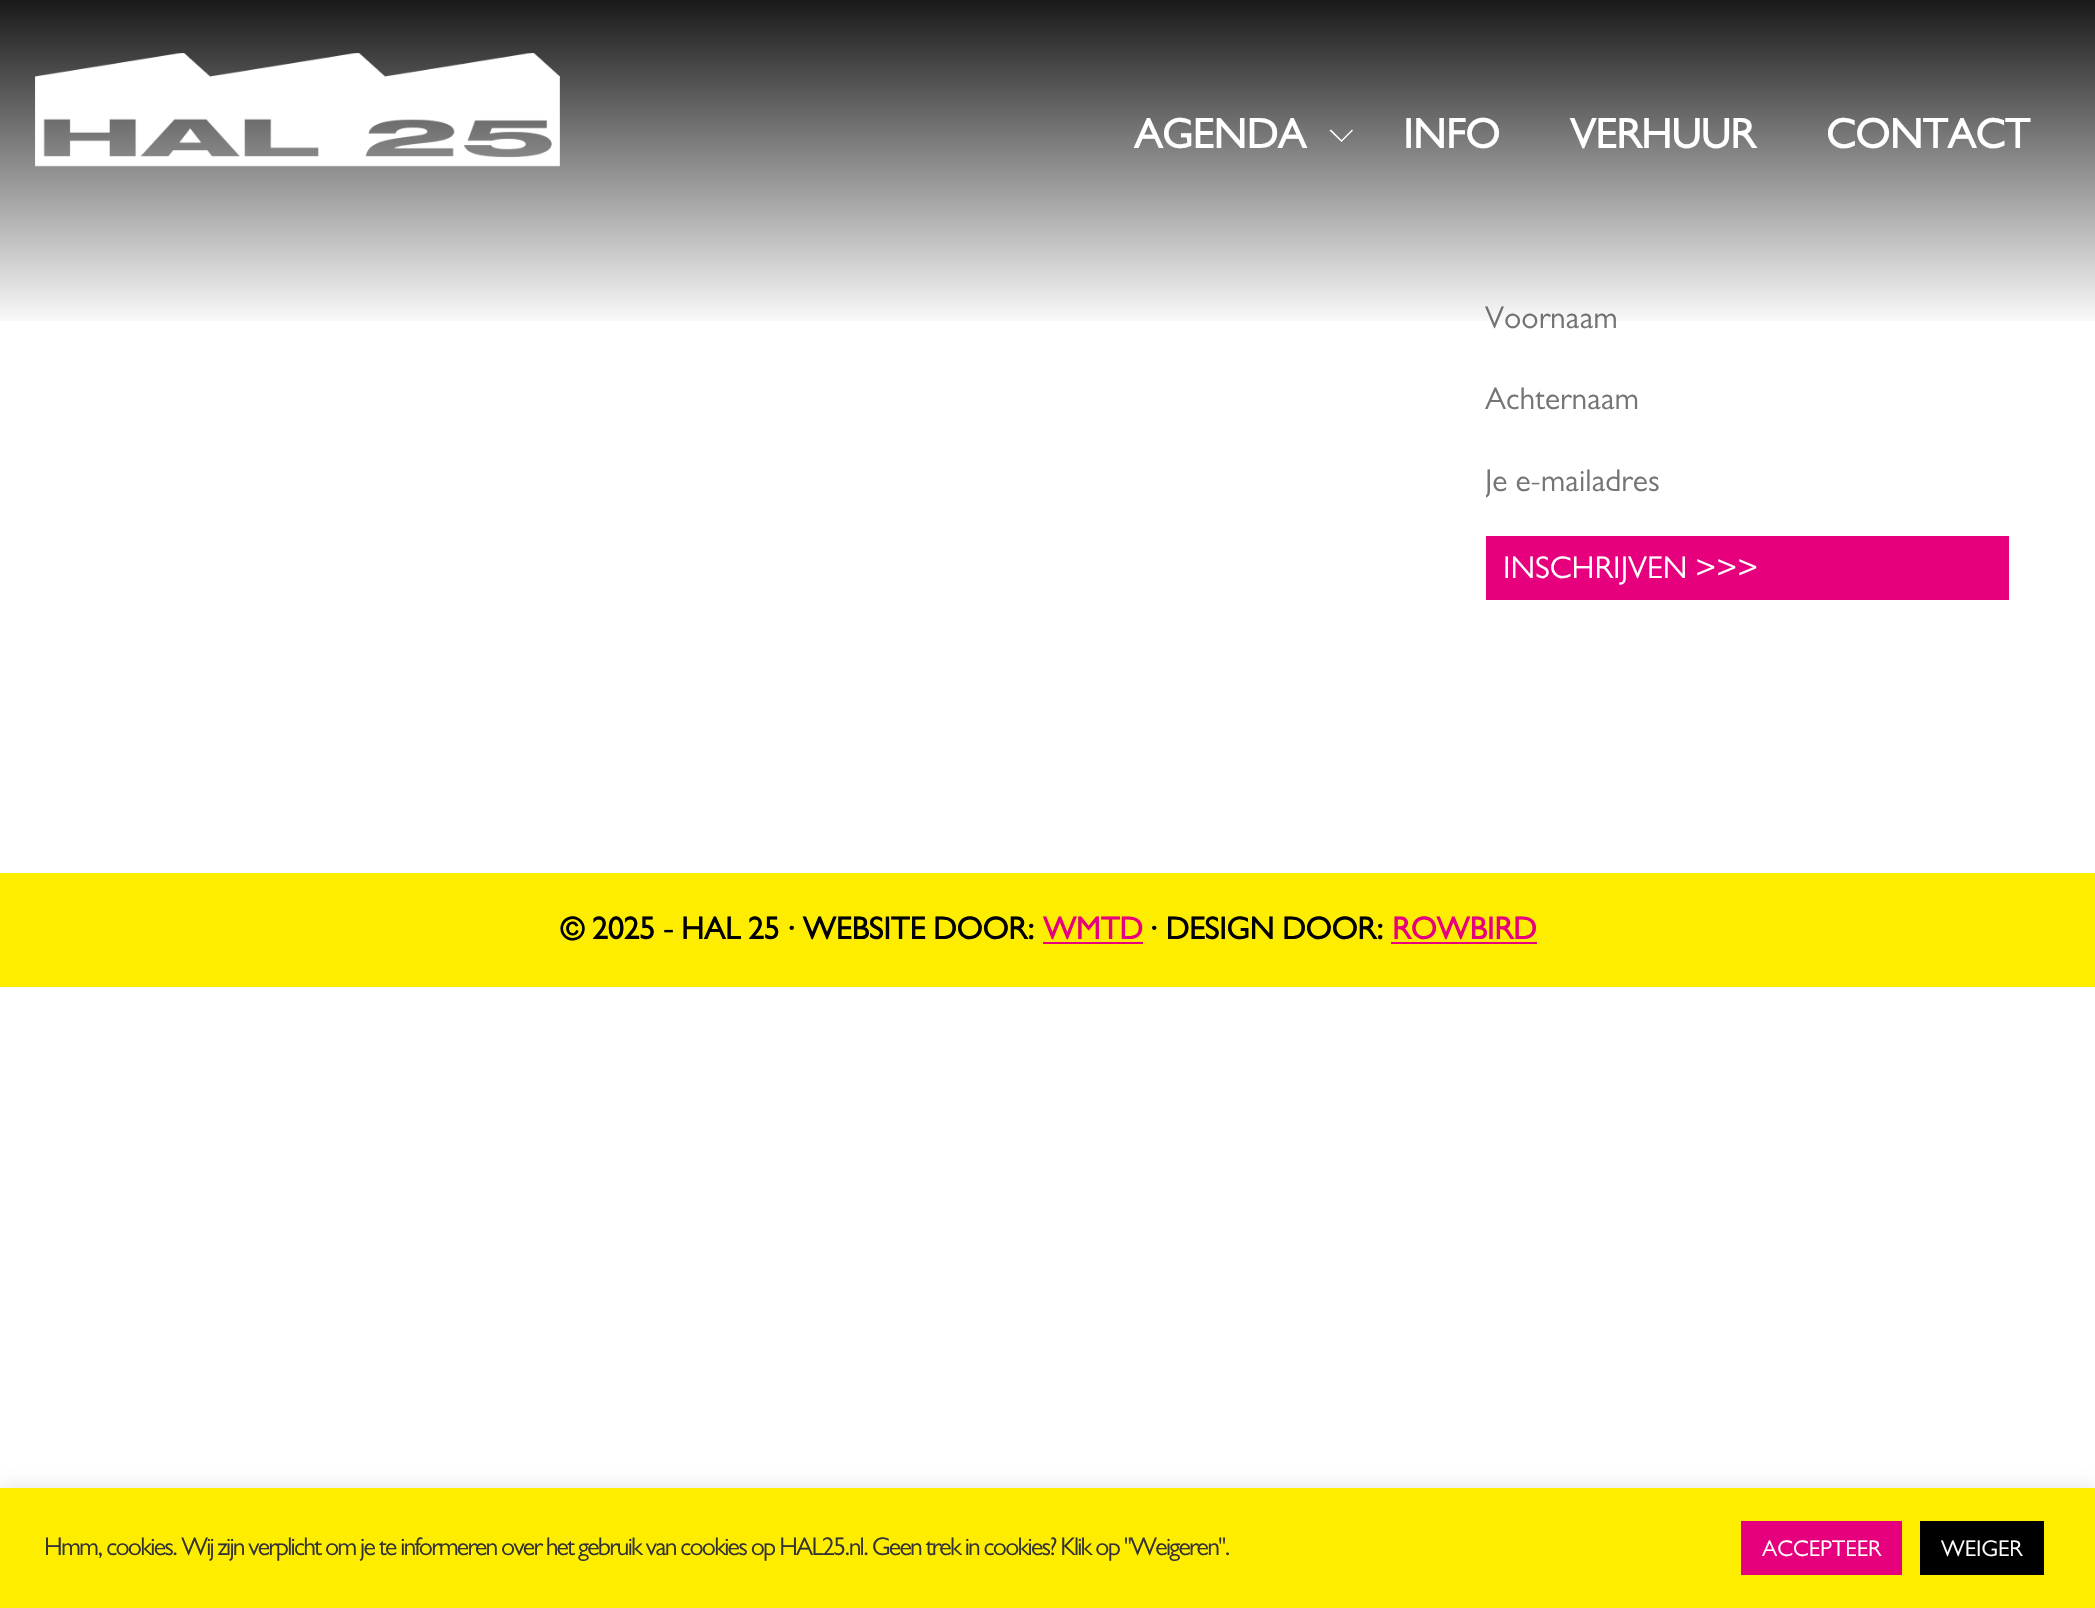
#include "include/core/SkBlurTypes.h"
#include "include/core/SkCanvas.h"
#include "include/core/SkData.h"
#include "include/core/SkFont.h"
#include "include/core/SkFontMgr.h"
#include "include/core/SkImage.h"
#include "include/core/SkMaskFilter.h"
#include "include/core/SkPaint.h"
#include "include/core/SkPathBuilder.h"
#include "include/core/SkTextBlob.h"
#include "include/effects/SkDashPathEffect.h"
#include "include/effects/SkGradientShader.h"
#include "include/utils/SkParsePath.h"

extern sk_sp<SkFontMgr> fontMgr;

static SkFont font(const char* family, int weight, float size, bool italic = false) {
    SkFontStyle style(weight, SkFontStyle::kNormal_Width,
        italic ? SkFontStyle::kItalic_Slant : SkFontStyle::kUpright_Slant);
    SkFont result(fontMgr->matchFamilyStyle(family, style), size);
    result.setSubpixel(true);
    return result;
}

static void drawLabel(SkCanvas* canvas, const char* s, float x, float y, const SkFont& font, SkColor color) {
    SkPaint ink(SkColor4f::FromColor(color));
    ink.setAntiAlias(true);
    canvas->drawString(s, x, y, font, ink);
}

static void drawTracked(SkCanvas* canvas, const char* s, float x, float y, const SkFont& font, const SkPaint& ink, float letter, float word) {
    std::vector<SkGlyphID> glyphs(font.countText(s, strlen(s), SkTextEncoding::kUTF8));
    std::vector<float> xs(glyphs.size());
    font.textToGlyphs(s, strlen(s), SkTextEncoding::kUTF8, glyphs);
    font.getXPos(glyphs, xs, x);
    float extra = 0;
    for (size_t i = 0; i < glyphs.size(); i++) {
        xs[i] += extra;
        extra += letter + word * (glyphs[i] == font.unicharToGlyph(' '));
    }
    canvas->drawTextBlob(SkTextBlob::MakeFromPosHGlyphs(glyphs, xs, y, font), 0, 0, ink);
}

static void fillRect(SkCanvas* canvas, float x, float y, float w, float h, SkColor color) {
    SkPaint ink(SkColor4f::FromColor(color));
    ink.setAntiAlias(true);
    canvas->drawRect(SkRect::MakeXYWH(x, y, w, h), ink);
}

static void drawPhoto(SkCanvas* canvas, const char* path, float x, float y, float w, float h) {
    auto image = SkImages::DeferredFromEncodedData(SkData::MakeFromFileName(path));
    canvas->drawImageRect(image, SkRect::MakeXYWH(x, y, w, h), SkSamplingOptions());
}

static SkPath parsePath(const char* data, bool evenOdd = false) {
    SkPath result = *SkParsePath::FromSVGString(data);
    if (evenOdd) result.setFillType(SkPathFillType::kEvenOdd);
    return result;
}

void draw(SkCanvas* canvas) {
    SkPaint paint;
    paint.setAntiAlias(true);
    canvas->clear(0xFFFFFFFF);
    SkFont font1 = font("Gill Sans", 400, 31.5f);
    drawLabel(canvas, "Voornaam", 1485, 328, font1, 0xFF757575);
    {
        const SkColor colors[] = {0xE6000000, 0x00000000};
        const float stops[] = {0, 1};
        const SkPoint ends[] = {{1048, 0}, {1048, 329}};
        paint.setShader(SkGradientShader::MakeLinear(ends, colors, stops, 2, SkTileMode::kClamp));
        paint.setAlpha(255);
    }
    canvas->drawRect(SkRect::MakeXYWH(0, 0, 2095, 321), paint);
    drawPhoto(canvas, "assets/img1.png", 35, 53, 525, 114);
    SkFont font2 = font("Gill Sans", 700, 42);
    drawLabel(canvas, "AGENDA", 1134, 148, font2, 0xFFFFFFFF);
    paint.setShader(nullptr);
    paint.setColor(0xFFFFFFFF);
    canvas->drawPath(parsePath("M1353 130.5L1352 129.5L1341.5 140L1331 129.5L1329.5 130.5L1341.5 142Z"), paint);
    drawLabel(canvas, "INFO", 1403, 148, font2, 0xFFFFFFFF);
    drawLabel(canvas, "VERHUUR", 1570, 148, font2, 0xFFFFFFFF);
    drawLabel(canvas, "CONTACT", 1826, 148, font2, 0xFFFFFFFF);
    drawLabel(canvas, "Achternaam", 1485, 409, font1, 0xFF757575);
    canvas->save();
    canvas->clipRect(SkRect::MakeXYWH(1486, 464, 523, 35));
    drawLabel(canvas, "Je e-mailadres", 1485, 491, font1, 0xFF757575);
    canvas->restore();
    fillRect(canvas, 1486, 536, 523, 64, 0xFFE6007E);
    drawLabel(canvas, "INSCHRIJVEN >>>", 1503, 578, font1, 0xFFFFFFFF);
    fillRect(canvas, 0, 873, 2095, 114, 0xFFFFED00);
    SkFont font3 = font("Gill Sans", 700, 31.5f);
    drawLabel(canvas, "© 2025 - HAL 25 · WEBSITE DOOR:", 560, 939, font3, 0xFF000000);
    drawLabel(canvas, "WMTD", 1043, 939, font3, 0xFFE6007E);
    fillRect(canvas, 1043, 942, 100, 2, 0xFFE6007E);
    drawLabel(canvas, "· DESIGN DOOR:", 1150, 939, font3, 0xFF000000);
    drawLabel(canvas, "ROWBIRD", 1392, 939, font3, 0xFFE6007E);
    fillRect(canvas, 1391, 942, 146, 2, 0xFFE6007E);
    paint.setColor(0x4DACABAB);
    paint.setMaskFilter(SkMaskFilter::MakeBlur(kNormal_SkBlurStyle, 9));
    canvas->drawRect(SkRect::MakeXYWH(0, 1486, 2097, 121), paint);
    paint.setMaskFilter(nullptr);
    fillRect(canvas, 0, 1488, 2095, 120, 0xFFFFED00);
    SkFont font4 = font("Gill Sans", 400, 25.65f);
    paint.setColor(0xFF333333);
    drawTracked(canvas, "Hmm, cookies. Wij zijn verplicht om je te informeren over het gebruik van cookies op HAL25.nl. Geen trek in cookies? Klik op \"Weigeren\".", 44, 1555, font4, paint, -1.75f, 0);
    fillRect(canvas, 1741, 1521, 161, 54, 0xFFE6007E);
    SkFont font5 = font("Gill Sans", 400, 22.75f);
    drawLabel(canvas, "ACCEPTEER", 1762, 1556, font5, 0xFFFFFFFF);
    fillRect(canvas, 1920, 1521, 124, 54, 0xFF000000);
    drawLabel(canvas, "WEIGER", 1941, 1556, font5, 0xFFFFFFFF);
}
